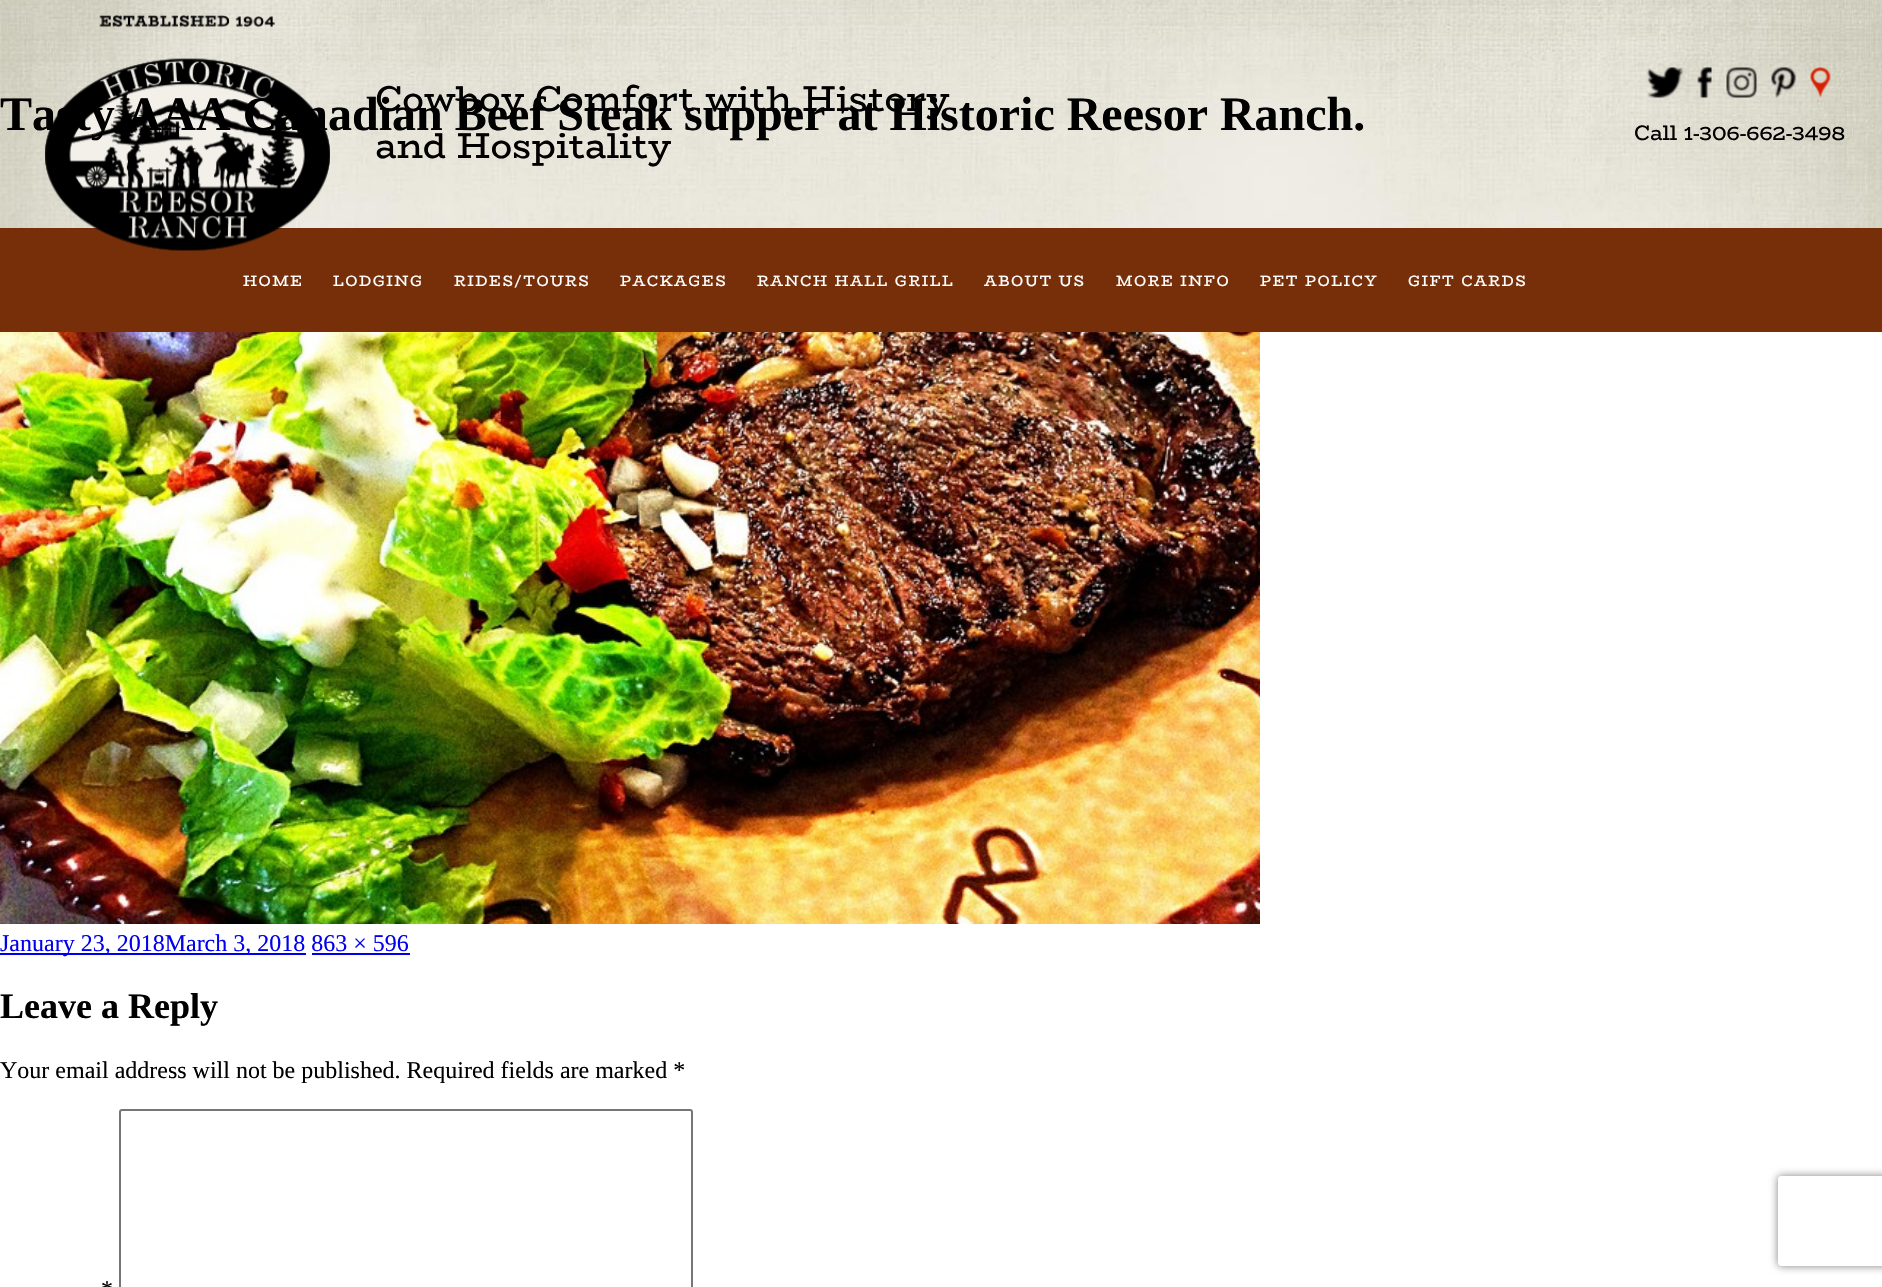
#include "include/core/SkBlurTypes.h"
#include "include/core/SkCanvas.h"
#include "include/core/SkData.h"
#include "include/core/SkFont.h"
#include "include/core/SkFontMgr.h"
#include "include/core/SkImage.h"
#include "include/core/SkMaskFilter.h"
#include "include/core/SkPaint.h"
#include "include/core/SkPathBuilder.h"
#include "include/core/SkTextBlob.h"
#include "include/effects/SkDashPathEffect.h"
#include "include/effects/SkGradientShader.h"
#include "include/utils/SkParsePath.h"

extern sk_sp<SkFontMgr> fontMgr;

static SkFont font(const char* family, int weight, float size, bool italic = false) {
    SkFontStyle style(weight, SkFontStyle::kNormal_Width,
        italic ? SkFontStyle::kItalic_Slant : SkFontStyle::kUpright_Slant);
    SkFont result(fontMgr->matchFamilyStyle(family, style), size);
    result.setSubpixel(true);
    return result;
}

static void drawLabel(SkCanvas* canvas, const char* s, float x, float y, const SkFont& font, SkColor color) {
    SkPaint ink(SkColor4f::FromColor(color));
    ink.setAntiAlias(true);
    canvas->drawString(s, x, y, font, ink);
}

static void drawTracked(SkCanvas* canvas, const char* s, float x, float y, const SkFont& font, const SkPaint& ink, float letter, float word) {
    std::vector<SkGlyphID> glyphs(font.countText(s, strlen(s), SkTextEncoding::kUTF8));
    std::vector<float> xs(glyphs.size());
    font.textToGlyphs(s, strlen(s), SkTextEncoding::kUTF8, glyphs);
    font.getXPos(glyphs, xs, x);
    float extra = 0;
    for (size_t i = 0; i < glyphs.size(); i++) {
        xs[i] += extra;
        extra += letter + word * (glyphs[i] == font.unicharToGlyph(' '));
    }
    canvas->drawTextBlob(SkTextBlob::MakeFromPosHGlyphs(glyphs, xs, y, font), 0, 0, ink);
}

static void fillRect(SkCanvas* canvas, float x, float y, float w, float h, SkColor color) {
    SkPaint ink(SkColor4f::FromColor(color));
    ink.setAntiAlias(true);
    canvas->drawRect(SkRect::MakeXYWH(x, y, w, h), ink);
}

static void drawPhoto(SkCanvas* canvas, const char* path, float x, float y, float w, float h) {
    auto image = SkImages::DeferredFromEncodedData(SkData::MakeFromFileName(path));
    canvas->drawImageRect(image, SkRect::MakeXYWH(x, y, w, h), SkSamplingOptions());
}

static SkPath parsePath(const char* data, bool evenOdd = false) {
    SkPath result = *SkParsePath::FromSVGString(data);
    if (evenOdd) result.setFillType(SkPathFillType::kEvenOdd);
    return result;
}

void draw(SkCanvas* canvas) {
    SkPaint paint;
    paint.setAntiAlias(true);
    canvas->clear(0xFFFFFFFF);
    drawPhoto(canvas, "assets/img2.png", 0, 0, 1882, 228);
    fillRect(canvas, 0, 228, 1882, 104, 0xFF772F09);
    drawPhoto(canvas, "assets/img1.png", 45, 15, 285, 236);
    SkFont font1 = font("BioRhyme", 800, 36);
    drawLabel(canvas, "Cowboy Comfort with History", 375, 111, font1, 0xFF000000);
    drawLabel(canvas, "and Hospitality", 375, 158, font1, 0xFF000000);
    drawPhoto(canvas, "assets/img3.png", 1646, 67, 38, 31);
    drawPhoto(canvas, "assets/img4.png", 1697, 67, 15, 31);
    drawPhoto(canvas, "assets/img5.png", 1726, 67, 31, 31);
    drawPhoto(canvas, "assets/img6.png", 1771, 67, 25, 31);
    drawPhoto(canvas, "assets/img7.png", 1810, 67, 21, 31);
    SkFont font2 = font("BioRhyme", 800, 21);
    drawLabel(canvas, "Call 1-306-662-3498", 1634, 140, font2, 0xFF000000);
    SkFont font3 = font("BioRhyme", 800, 15);
    paint.setColor(0xFFFFFFFF);
    drawTracked(canvas, "HOME", 243, 286, font3, paint, 1.5f, 0);
    drawTracked(canvas, "LODGING", 333, 286, font3, paint, 1.5f, 0);
    drawTracked(canvas, "RIDES/TOURS", 454, 286, font3, paint, 1.5f, 0);
    drawTracked(canvas, "PACKAGES", 620, 286, font3, paint, 1.5f, 0);
    drawTracked(canvas, "RANCH HALL GRILL", 757, 286, font3, paint, 1.5f, 0);
    drawTracked(canvas, "ABOUT US", 984, 286, font3, paint, 1.5f, 0);
    drawTracked(canvas, "MORE INFO", 1116, 286, font3, paint, 1.5f, 0);
    drawTracked(canvas, "PET POLICY", 1260, 286, font3, paint, 1.5f, 0);
    drawTracked(canvas, "GIFT CARDS", 1408, 286, font3, paint, 1.5f, 0);
    SkFont font4 = font("Liberation Serif", 700, 48);
    drawLabel(canvas, "Tasty AAA Canadian Beef Steak supper at Historic Reesor Ranch.", 0, 130, font4, 0xFF000000);
    drawPhoto(canvas, "assets/img8.png", 0, 332, 1260, 592);
    fillRect(canvas, 0, 953, 306, 2, 0xFF0000EE);
    SkFont font5 = font("Liberation Serif", 400, 24);
    drawLabel(canvas, "January 23, 2018March 3, 2018 863 × 596", 0, 951, font5, 0xFF0000EE);
    fillRect(canvas, 312, 953, 98, 2, 0xFF0000EE);
    SkFont font6 = font("Liberation Serif", 700, 36);
    drawLabel(canvas, "Leave a Reply", 0, 1018, font6, 0xFF000000);
    drawLabel(canvas, "Your email address will not be published. Required fields are marked *", 0, 1078, font5, 0xFF000000);
    drawLabel(canvas, "*", 101, 1297, font5, 0xFF000000);
    paint.setStroke(true);
    paint.setStrokeWidth(2);
    paint.setColor(0xFF767676);
    canvas->drawRoundRect(SkRect::MakeXYWH(120, 1110, 572, 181), 2, 2, paint);
    canvas->save();
    canvas->clipPath(parsePath("M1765 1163H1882V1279H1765ZM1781 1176H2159C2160.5 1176 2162 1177.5 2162 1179V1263C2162 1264.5 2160.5 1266 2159 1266H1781C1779.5 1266 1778 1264.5 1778 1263V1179C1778 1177.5 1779.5 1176 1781 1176Z", true), true);
    paint.setStroke(false);
    paint.setColor(0xFF808080);
    paint.setMaskFilter(SkMaskFilter::MakeBlur(kNormal_SkBlurStyle, 4));
    canvas->drawRoundRect(SkRect::MakeXYWH(1778, 1176, 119, 90), 3, 3, paint);
    paint.setMaskFilter(nullptr);
    canvas->restore();
}
